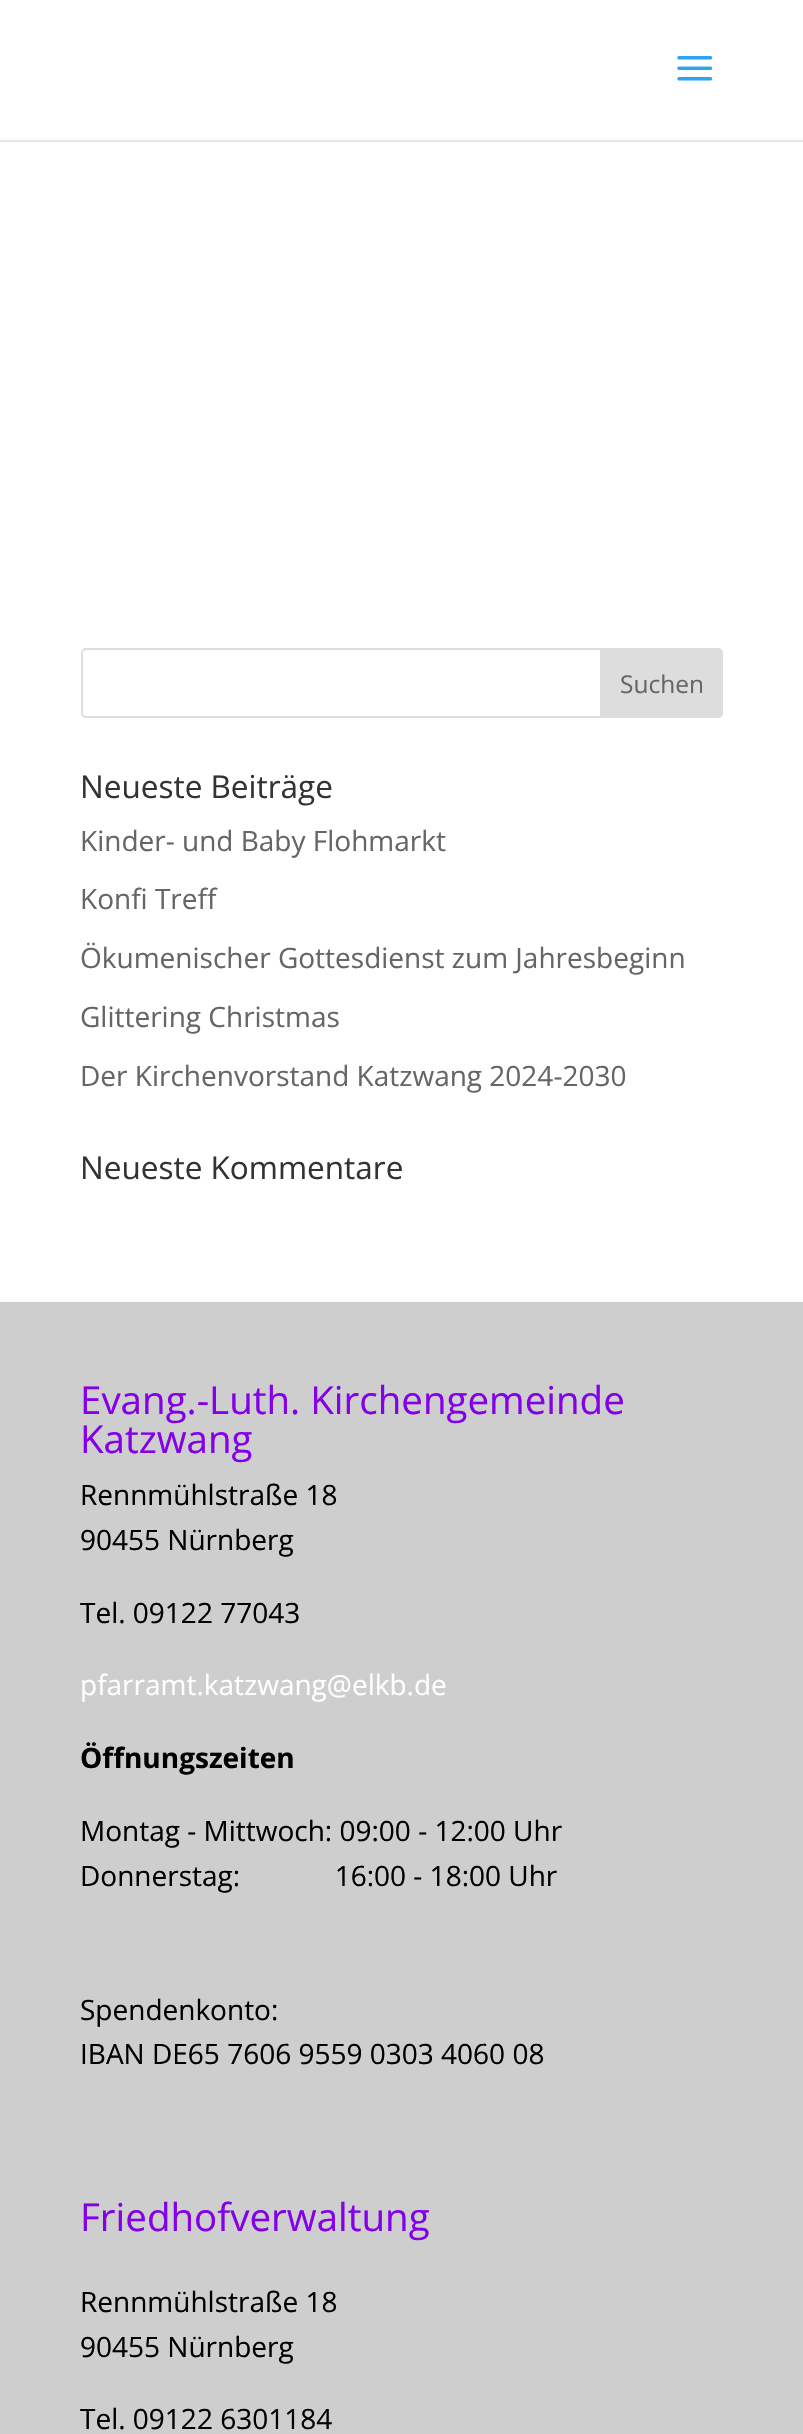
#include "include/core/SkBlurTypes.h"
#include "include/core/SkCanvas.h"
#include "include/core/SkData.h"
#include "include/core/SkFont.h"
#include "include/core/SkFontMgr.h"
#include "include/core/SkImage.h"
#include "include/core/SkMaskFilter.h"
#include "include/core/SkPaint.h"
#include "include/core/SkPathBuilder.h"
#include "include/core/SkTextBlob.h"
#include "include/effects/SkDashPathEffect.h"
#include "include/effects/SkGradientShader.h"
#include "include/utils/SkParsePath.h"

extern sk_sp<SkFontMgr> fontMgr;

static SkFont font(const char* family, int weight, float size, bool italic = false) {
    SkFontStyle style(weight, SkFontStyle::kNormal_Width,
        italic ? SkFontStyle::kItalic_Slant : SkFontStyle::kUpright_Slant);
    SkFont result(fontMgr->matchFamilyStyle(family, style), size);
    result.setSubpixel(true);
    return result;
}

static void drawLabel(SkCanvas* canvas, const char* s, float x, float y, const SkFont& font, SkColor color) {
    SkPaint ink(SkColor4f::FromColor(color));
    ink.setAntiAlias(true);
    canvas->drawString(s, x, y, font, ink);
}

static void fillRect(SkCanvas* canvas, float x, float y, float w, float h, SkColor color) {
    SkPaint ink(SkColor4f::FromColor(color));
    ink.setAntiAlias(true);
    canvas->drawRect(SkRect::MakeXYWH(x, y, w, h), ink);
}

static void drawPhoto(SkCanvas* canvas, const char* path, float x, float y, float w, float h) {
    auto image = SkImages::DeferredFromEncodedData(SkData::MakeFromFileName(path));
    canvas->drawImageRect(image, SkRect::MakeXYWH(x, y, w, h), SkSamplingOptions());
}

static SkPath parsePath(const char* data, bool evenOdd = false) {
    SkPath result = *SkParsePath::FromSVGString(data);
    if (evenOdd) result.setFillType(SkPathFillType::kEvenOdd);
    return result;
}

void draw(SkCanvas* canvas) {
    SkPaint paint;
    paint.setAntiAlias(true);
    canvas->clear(0xFFFFFFFF);
    fillRect(canvas, 0, 140, 803, 2, 0xFFE6E6E6);
    drawPhoto(canvas, "assets/img1.png", 677, 56, 36, 25);
    paint.setStroke(true);
    paint.setStrokeWidth(2);
    paint.setColor(0xFFDDDDDD);
    canvas->drawRoundRect(SkRect::MakeXYWH(82, 649, 640, 68), 4, 4, paint);
    paint.setStroke(false);
    canvas->drawPath(parsePath("M601 649H718C720 649 722 651 722 653V713C722 715 720 717 718 717H601Z"), paint);
    paint.setStroke(true);
    canvas->drawPath(parsePath("M601 649H718C720 649 722 651 722 653V713C722 715 720 717 718 717H601Z"), paint);
    SkFont font1 = font("Open Sans", 400, 24.5f);
    drawLabel(canvas, "Suchen", 620, 693, font1, 0xFF666666);
    SkFont font2 = font("Open Sans", 400, 31.5f);
    drawLabel(canvas, "Neueste Beiträge", 80, 798, font2, 0xFF333333);
    SkFont font3 = font("Open Sans", 400, 28);
    drawLabel(canvas, "Kinder- und Baby Flohmarkt", 80, 851, font3, 0xFF666666);
    drawLabel(canvas, "Konfi Treff", 80, 909, font3, 0xFF666666);
    drawLabel(canvas, "Ökumenischer Gottesdienst zum Jahresbeginn", 80, 968, font3, 0xFF666666);
    drawLabel(canvas, "Glittering Christmas", 80, 1027, font3, 0xFF666666);
    drawLabel(canvas, "Der Kirchenvorstand Katzwang 2024-2030", 80, 1086, font3, 0xFF666666);
    drawLabel(canvas, "Neueste Kommentare", 80, 1179, font2, 0xFF333333);
    fillRect(canvas, 0, 1302, 803, 1132, 0xFFCECECE);
    SkFont font4 = font("Open Sans", 400, 38.5f);
    drawLabel(canvas, "Evang.-Luth. Kirchengemeinde", 80, 1414, font4, 0xFF8300E8);
    drawLabel(canvas, "Katzwang", 80, 1453, font4, 0xFF8300E8);
    drawLabel(canvas, "Rennmühlstraße 18", 80, 1505, font3, 0xFF000000);
    drawLabel(canvas, "90455 Nürnberg", 80, 1550, font3, 0xFF000000);
    drawLabel(canvas, "Tel. 09122 77043", 80, 1623, font3, 0xFF000000);
    drawLabel(canvas, "pfarramt.katzwang@elkb.de", 80, 1695, font3, 0xFFFFFFFF);
    SkFont font5 = font("Open Sans", 700, 28);
    drawLabel(canvas, "Öffnungszeiten", 80, 1768, font5, 0xFF000000);
    drawLabel(canvas, "Montag - Mittwoch: 09:00 - 12:00 Uhr", 80, 1841, font3, 0xFF000000);
    drawLabel(canvas, "Donnerstag:             16:00 - 18:00 Uhr", 80, 1886, font3, 0xFF000000);
    drawLabel(canvas, "Spendenkonto:", 80, 2020, font3, 0xFF000000);
    drawLabel(canvas, "IBAN DE65 7606 9559 0303 4060 08", 80, 2064, font3, 0xFF000000);
    drawLabel(canvas, "Friedhofverwaltung", 80, 2231, font4, 0xFF8300E8);
    drawLabel(canvas, "Rennmühlstraße 18", 80, 2312, font3, 0xFF000000);
    drawLabel(canvas, "90455 Nürnberg", 80, 2357, font3, 0xFF000000);
    drawLabel(canvas, "Tel. 09122 6301184", 80, 2429, font3, 0xFF000000);
}
